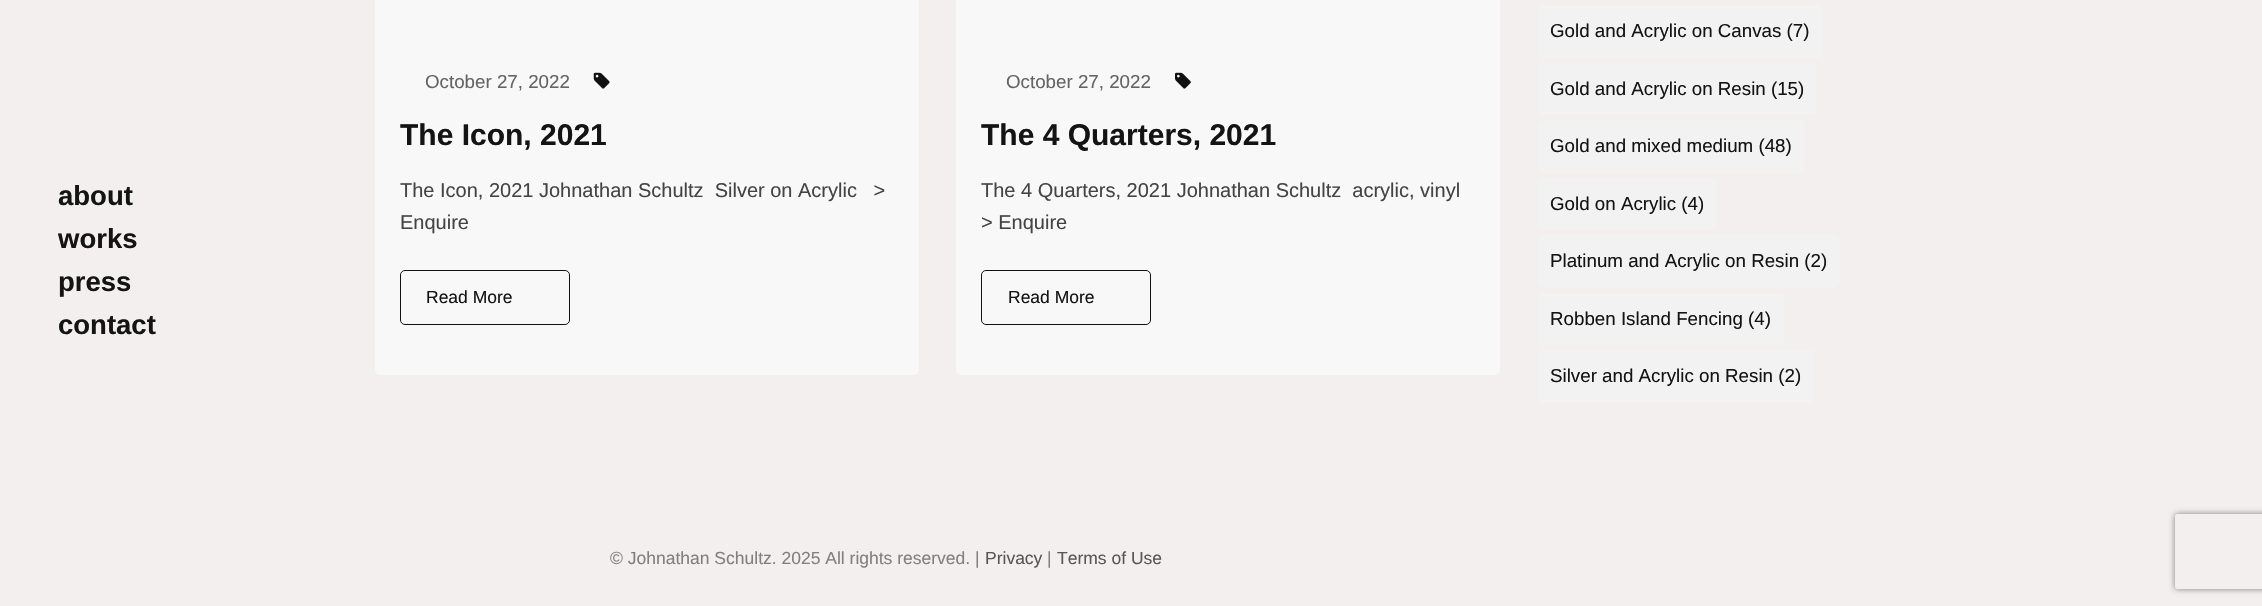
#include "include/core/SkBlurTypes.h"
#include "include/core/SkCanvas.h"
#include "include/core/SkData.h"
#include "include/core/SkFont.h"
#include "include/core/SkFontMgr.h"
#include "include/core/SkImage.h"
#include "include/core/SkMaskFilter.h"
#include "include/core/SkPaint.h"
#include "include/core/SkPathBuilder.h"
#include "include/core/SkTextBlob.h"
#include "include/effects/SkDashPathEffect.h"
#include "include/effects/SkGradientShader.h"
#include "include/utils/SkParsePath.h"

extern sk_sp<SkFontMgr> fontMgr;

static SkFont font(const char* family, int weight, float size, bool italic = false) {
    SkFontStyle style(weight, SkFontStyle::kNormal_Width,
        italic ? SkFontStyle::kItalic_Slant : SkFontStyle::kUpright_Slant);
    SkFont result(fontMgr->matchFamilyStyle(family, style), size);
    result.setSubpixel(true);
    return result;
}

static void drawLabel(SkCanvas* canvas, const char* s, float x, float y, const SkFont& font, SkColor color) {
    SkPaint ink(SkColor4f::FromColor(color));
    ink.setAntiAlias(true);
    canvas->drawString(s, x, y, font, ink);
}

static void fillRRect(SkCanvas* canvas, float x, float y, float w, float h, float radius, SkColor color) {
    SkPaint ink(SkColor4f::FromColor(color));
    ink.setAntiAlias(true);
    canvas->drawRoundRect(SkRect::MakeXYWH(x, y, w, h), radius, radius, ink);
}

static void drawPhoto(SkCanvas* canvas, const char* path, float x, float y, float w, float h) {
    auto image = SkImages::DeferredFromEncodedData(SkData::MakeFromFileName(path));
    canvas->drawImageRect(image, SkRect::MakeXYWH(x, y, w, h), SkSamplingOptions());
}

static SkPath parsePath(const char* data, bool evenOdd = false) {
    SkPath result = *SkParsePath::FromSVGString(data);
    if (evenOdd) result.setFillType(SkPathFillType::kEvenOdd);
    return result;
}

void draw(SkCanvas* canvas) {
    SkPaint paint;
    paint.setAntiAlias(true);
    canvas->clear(0xFFF2EFEE);
    SkFont font1 = font("Liberation Sans", 700, 27.5f);
    drawLabel(canvas, "about", 58, 205, font1, 0xFF141414);
    drawLabel(canvas, "works", 58, 248, font1, 0xFF141414);
    drawLabel(canvas, "press", 58, 291, font1, 0xFF141414);
    drawLabel(canvas, "contact", 58, 334, font1, 0xFF141414);
    fillRRect(canvas, 375, -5, 544, 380, 5, 0xFFF8F8F8);
    SkFont font2 = font("Liberation Sans", 400, 18.75f);
    drawLabel(canvas, "October 27, 2022", 425, 88, font2, 0xFF646464);
    drawPhoto(canvas, "assets/img1.png", 593, 72, 17, 17);
    SkFont font3 = font("Liberation Sans", 700, 30);
    drawLabel(canvas, "The Icon, 2021", 400, 145, font3, 0xFF141414);
    SkFont font4 = font("Liberation Sans", 400, 20);
    drawLabel(canvas, "The Icon, 2021 Johnathan Schultz  Silver on Acrylic   >", 400, 197, font4, 0xFF444444);
    drawLabel(canvas, "Enquire", 400, 229, font4, 0xFF444444);
    paint.setStroke(true);
    paint.setStrokeWidth(1);
    paint.setColor(0xFF111111);
    canvas->drawRoundRect(SkRect::MakeXYWH(400.5f, 270.5f, 169, 54), 4.5f, 4.5f, paint);
    SkFont font5 = font("Liberation Sans", 400, 17.5f);
    drawLabel(canvas, "Read More", 426, 303, font5, 0xFF141414);
    fillRRect(canvas, 956, -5, 544, 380, 5, 0xFFF8F8F8);
    drawLabel(canvas, "October 27, 2022", 1006, 88, font2, 0xFF646464);
    drawPhoto(canvas, "assets/img2.png", 1175, 72, 16, 17);
    drawLabel(canvas, "The 4 Quarters, 2021", 981, 145, font3, 0xFF141414);
    drawLabel(canvas, "The 4 Quarters, 2021 Johnathan Schultz  acrylic, vinyl", 981, 197, font4, 0xFF444444);
    drawLabel(canvas, "> Enquire", 981, 229, font4, 0xFF444444);
    canvas->drawRoundRect(SkRect::MakeXYWH(981.5f, 270.5f, 169, 54), 4.5f, 4.5f, paint);
    drawLabel(canvas, "Read More", 1008, 303, font5, 0xFF141414);
    fillRRect(canvas, 1538, 5, 285, 53, 5, 0xFFF2F2F2);
    drawLabel(canvas, "Gold and Acrylic on Canvas (7)", 1550, 37, font2, 0xFF141414);
    fillRRect(canvas, 1538, 63, 278, 52, 5, 0xFFF2F2F2);
    drawLabel(canvas, "Gold and Acrylic on Resin (15)", 1550, 95, font2, 0xFF141414);
    fillRRect(canvas, 1538, 120, 266, 53, 5, 0xFFF2F2F2);
    drawLabel(canvas, "Gold and mixed medium (48)", 1550, 152, font2, 0xFF141414);
    fillRRect(canvas, 1538, 178, 178, 52, 5, 0xFFF2F2F2);
    drawLabel(canvas, "Gold on Acrylic (4)", 1550, 210, font2, 0xFF141414);
    fillRRect(canvas, 1538, 235, 302, 53, 5, 0xFFF2F2F2);
    drawLabel(canvas, "Platinum and Acrylic on Resin (2)", 1550, 267, font2, 0xFF141414);
    fillRRect(canvas, 1538, 293, 246, 52, 5, 0xFFF2F2F2);
    drawLabel(canvas, "Robben Island Fencing (4)", 1550, 325, font2, 0xFF141414);
    fillRRect(canvas, 1538, 350, 276, 53, 5, 0xFFF2F2F2);
    drawLabel(canvas, "Silver and Acrylic on Resin (2)", 1550, 382, font2, 0xFF141414);
    drawLabel(canvas, "© Johnathan Schultz. 2025 All rights reserved. |", 610, 564, font5, 0xFF808080);
    drawLabel(canvas, "Privacy", 985, 564, font5, 0xFF595656);
    drawLabel(canvas, "|", 1047, 564, font5, 0xFF808080);
    drawLabel(canvas, "Terms of Use", 1057, 564, font5, 0xFF595656);
    canvas->save();
    canvas->clipPath(parsePath("M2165 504H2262V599H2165ZM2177.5 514H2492.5C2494 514 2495 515 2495 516.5V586.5C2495 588 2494 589 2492.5 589H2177.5C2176 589 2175 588 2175 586.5V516.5C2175 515 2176 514 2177.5 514Z", true), true);
    paint.setStroke(false);
    paint.setColor(0xFF808080);
    paint.setMaskFilter(SkMaskFilter::MakeBlur(kNormal_SkBlurStyle, 3));
    canvas->drawRoundRect(SkRect::MakeXYWH(2175, 514, 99, 75), 2.5f, 2.5f, paint);
    paint.setMaskFilter(nullptr);
    canvas->restore();
}
